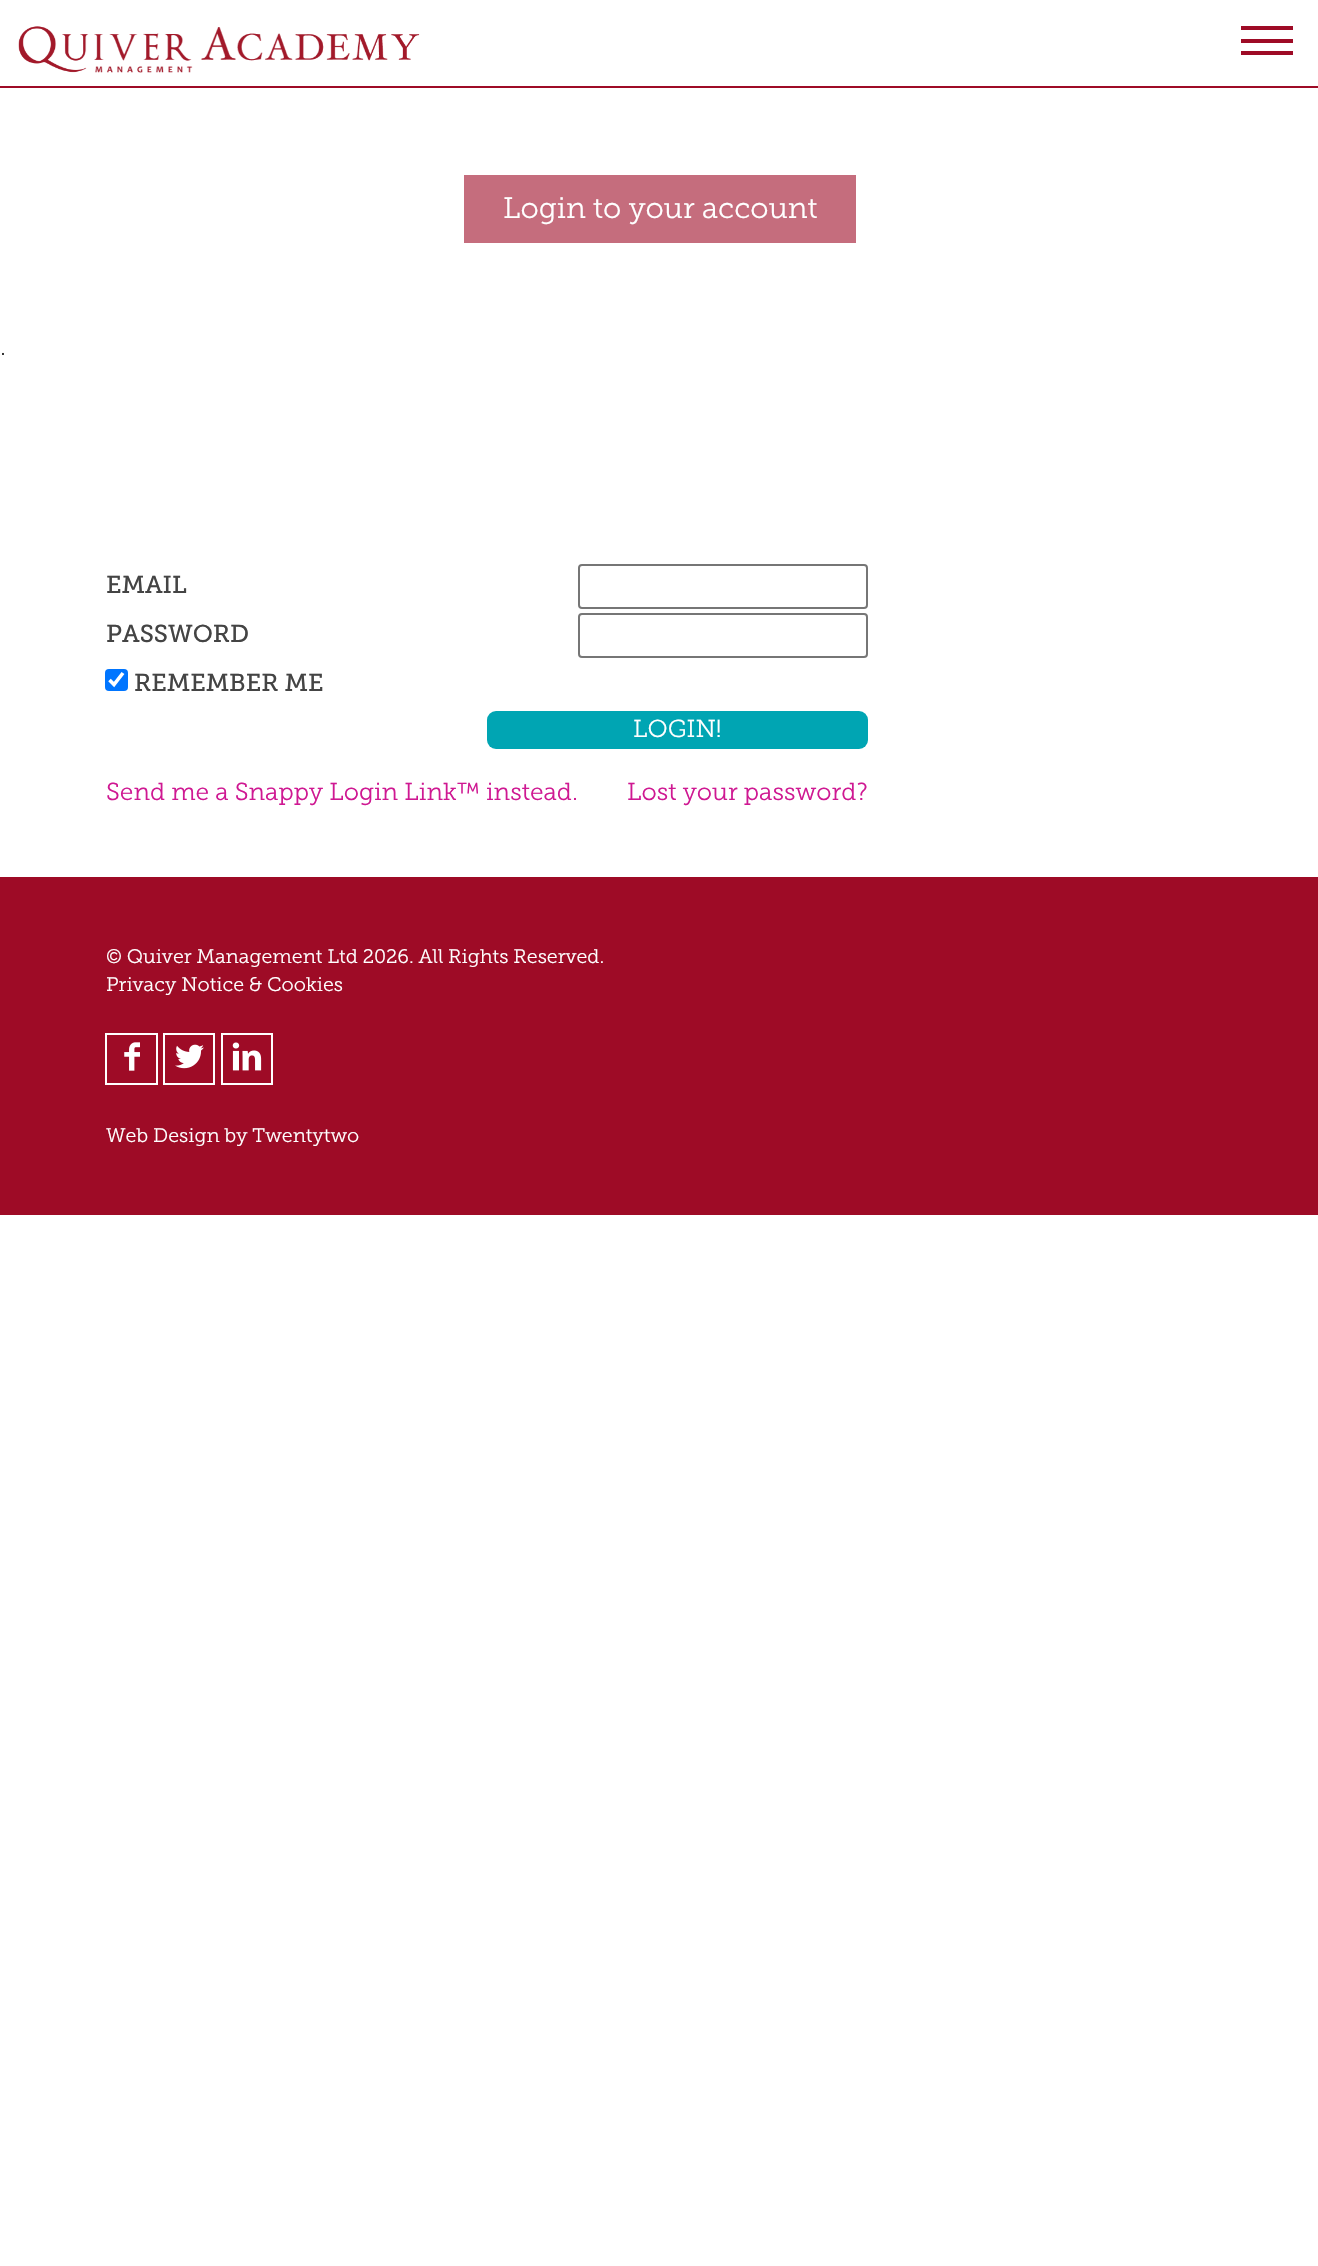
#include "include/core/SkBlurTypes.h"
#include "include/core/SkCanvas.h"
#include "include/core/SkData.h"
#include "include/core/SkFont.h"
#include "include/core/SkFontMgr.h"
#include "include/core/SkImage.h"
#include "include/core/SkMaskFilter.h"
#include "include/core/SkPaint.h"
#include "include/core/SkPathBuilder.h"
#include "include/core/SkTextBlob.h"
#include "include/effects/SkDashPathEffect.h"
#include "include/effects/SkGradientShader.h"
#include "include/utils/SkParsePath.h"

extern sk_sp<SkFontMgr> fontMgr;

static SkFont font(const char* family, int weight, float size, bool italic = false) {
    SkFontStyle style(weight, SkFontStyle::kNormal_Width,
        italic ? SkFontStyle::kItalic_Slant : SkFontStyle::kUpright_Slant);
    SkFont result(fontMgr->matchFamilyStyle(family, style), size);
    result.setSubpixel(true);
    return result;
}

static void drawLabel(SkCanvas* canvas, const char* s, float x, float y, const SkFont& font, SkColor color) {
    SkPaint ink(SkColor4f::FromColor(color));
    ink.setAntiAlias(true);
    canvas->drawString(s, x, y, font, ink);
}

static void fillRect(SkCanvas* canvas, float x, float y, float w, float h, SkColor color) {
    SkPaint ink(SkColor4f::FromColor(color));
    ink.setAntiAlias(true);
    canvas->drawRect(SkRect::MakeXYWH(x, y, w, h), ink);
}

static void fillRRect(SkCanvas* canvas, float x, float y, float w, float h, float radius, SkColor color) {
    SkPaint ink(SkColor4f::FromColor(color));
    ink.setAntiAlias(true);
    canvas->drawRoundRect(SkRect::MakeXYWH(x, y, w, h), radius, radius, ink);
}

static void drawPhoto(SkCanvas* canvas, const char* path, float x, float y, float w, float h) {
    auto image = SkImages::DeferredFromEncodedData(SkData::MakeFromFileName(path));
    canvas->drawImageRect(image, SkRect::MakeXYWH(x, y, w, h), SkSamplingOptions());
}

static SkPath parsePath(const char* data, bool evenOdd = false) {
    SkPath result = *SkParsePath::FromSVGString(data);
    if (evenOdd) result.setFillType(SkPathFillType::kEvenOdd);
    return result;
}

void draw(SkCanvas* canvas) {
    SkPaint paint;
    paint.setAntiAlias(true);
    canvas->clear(0xFFFFFFFF);
    fillRect(canvas, 0, 86, 1318, 2, 0xFF9E0B26);
    drawPhoto(canvas, "assets/img1.png", 18, 26, 402, 47);
    fillRect(canvas, 1241, 26, 52, 4, 0xFF9E0B26);
    fillRect(canvas, 1241, 39, 52, 4, 0xFF9E0B26);
    fillRect(canvas, 1241, 51, 52, 4, 0xFF9E0B26);
    fillRect(canvas, 464, 175, 392, 68, 0xFFC56D7D);
    SkFont font1 = font("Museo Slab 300", 300, 29.4f);
    drawLabel(canvas, "Login to your account", 503, 218, font1, 0xFFFFFFFF);
    SkFont font2 = font("Museo Slab 300", 300, 24.5f);
    drawLabel(canvas, ".", 0, 355, font2, 0xFF333333);
    SkFont font3 = font("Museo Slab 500", 400, 24.5f);
    drawLabel(canvas, "EMAIL", 106, 593, font3, 0xFF444444);
    paint.setStroke(true);
    paint.setStrokeWidth(2);
    paint.setColor(0xFF767676);
    canvas->drawRoundRect(SkRect::MakeXYWH(579, 565, 288, 43), 3, 3, paint);
    drawLabel(canvas, "PASSWORD", 106, 642, font3, 0xFF444444);
    canvas->drawRoundRect(SkRect::MakeXYWH(579, 614, 288, 43), 3, 3, paint);
    fillRRect(canvas, 105, 669, 23, 22, 4, 0xFF0075FF);
    paint.setStrokeWidth(3.6f);
    paint.setColor(0xFFFFFFFF);
    canvas->drawPath(parsePath("M109.5 680L114 684.5L123 673"), paint);
    drawLabel(canvas, "REMEMBER ME", 134, 691, font3, 0xFF444444);
    fillRRect(canvas, 487, 711, 381, 38, 9, 0xFF00A5B3);
    drawLabel(canvas, "LOGIN!", 633, 737, font2, 0xFFFFFFFF);
    drawLabel(canvas, "Send me a Snappy Login Link™ instead.", 106, 800, font2, 0xFFCF1892);
    drawLabel(canvas, "Lost your password?", 627, 800, font2, 0xFFCF1892);
    fillRect(canvas, 0, 877, 1318, 338, 0xFF9E0B26);
    SkFont font4 = font("Museo Slab 300", 300, 19.6f);
    drawLabel(canvas, "© Quiver Management Ltd 2026. All Rights Reserved.", 106, 963, font4, 0xFFFFFFFF);
    drawLabel(canvas, "Privacy Notice & Cookies", 106, 991, font4, 0xFFFFFFFF);
    paint.setStrokeWidth(2);
    canvas->drawRect(SkRect::MakeXYWH(106, 1034, 51, 50), paint);
    drawPhoto(canvas, "assets/img2.png", 124, 1042, 16, 29);
    canvas->drawRect(SkRect::MakeXYWH(164, 1034, 50, 50), paint);
    drawPhoto(canvas, "assets/img3.png", 175, 1044, 29, 25);
    canvas->drawRect(SkRect::MakeXYWH(222, 1034, 50, 50), paint);
    drawPhoto(canvas, "assets/img4.png", 232, 1042, 30, 29);
    drawLabel(canvas, "Web Design by Twentytwo", 106, 1142, font4, 0xFFFFFFFF);
}
